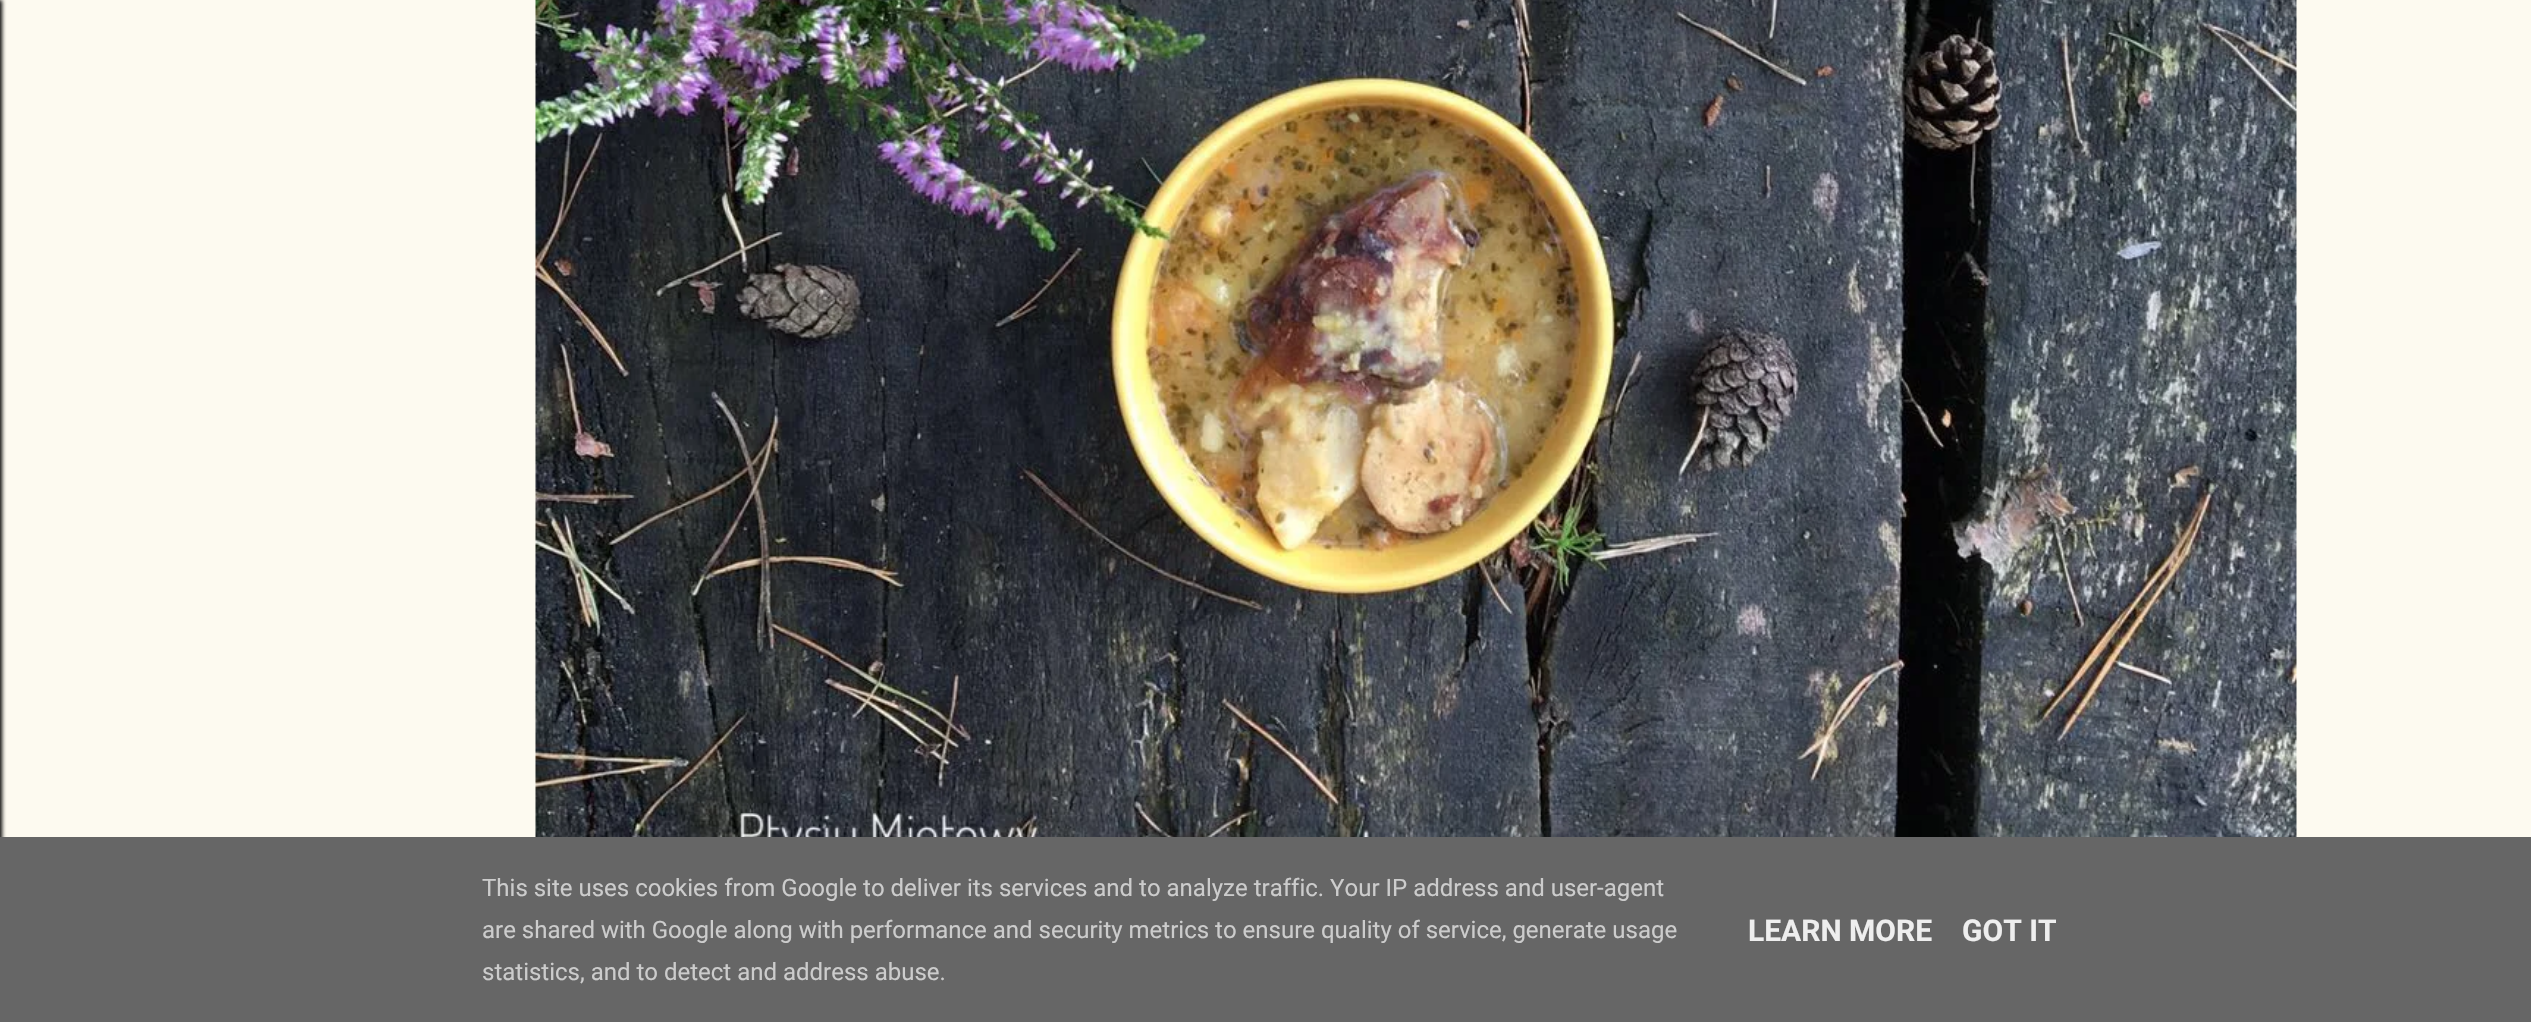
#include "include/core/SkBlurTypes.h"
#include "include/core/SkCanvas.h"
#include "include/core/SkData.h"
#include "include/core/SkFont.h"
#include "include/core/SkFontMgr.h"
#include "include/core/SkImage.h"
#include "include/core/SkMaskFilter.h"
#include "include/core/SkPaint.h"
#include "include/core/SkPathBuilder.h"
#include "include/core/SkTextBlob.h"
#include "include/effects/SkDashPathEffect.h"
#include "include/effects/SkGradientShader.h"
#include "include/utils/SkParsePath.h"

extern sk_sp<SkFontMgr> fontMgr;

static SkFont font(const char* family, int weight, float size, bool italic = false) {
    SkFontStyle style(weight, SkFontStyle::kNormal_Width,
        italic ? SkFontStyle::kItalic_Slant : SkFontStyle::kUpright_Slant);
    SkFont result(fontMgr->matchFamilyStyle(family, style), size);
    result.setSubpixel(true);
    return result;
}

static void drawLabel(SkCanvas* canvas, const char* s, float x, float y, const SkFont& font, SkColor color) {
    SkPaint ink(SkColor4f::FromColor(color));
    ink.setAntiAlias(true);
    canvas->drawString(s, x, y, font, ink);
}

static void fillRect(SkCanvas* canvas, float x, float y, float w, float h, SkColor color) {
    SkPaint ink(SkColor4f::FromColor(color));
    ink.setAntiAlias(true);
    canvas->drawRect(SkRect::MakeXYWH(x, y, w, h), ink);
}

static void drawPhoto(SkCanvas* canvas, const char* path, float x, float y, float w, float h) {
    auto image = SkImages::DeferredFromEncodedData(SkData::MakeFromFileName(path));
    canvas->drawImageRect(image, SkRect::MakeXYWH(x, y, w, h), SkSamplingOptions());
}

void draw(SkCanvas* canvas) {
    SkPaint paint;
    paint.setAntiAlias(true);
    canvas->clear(0xFFFDFAF0);
    paint.setColor(0xFF000000);
    paint.setMaskFilter(SkMaskFilter::MakeBlur(kNormal_SkBlurStyle, 2));
    canvas->drawRect(SkRect::MakeXYWH(-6, 0, 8, 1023), paint);
    paint.setMaskFilter(nullptr);
    drawPhoto(canvas, "assets/img1.png", 535, 0, 1762, 837);
    fillRect(canvas, 0, 837, 2531, 185, 0xFF666666);
    SkFont font1 = font("Roboto", 400, 24);
    drawLabel(canvas, "This site uses cookies from Google to deliver its services and to analyze traffic. Your IP address and user-agent", 482, 896, font1, 0xFFCCCCCC);
    drawLabel(canvas, "are shared with Google along with performance and security metrics to ensure quality of service, generate usage", 482, 938, font1, 0xFFCCCCCC);
    drawLabel(canvas, "statistics, and to detect and address abuse.", 482, 980, font1, 0xFFCCCCCC);
    SkFont font2 = font("Roboto", 700, 30);
    drawLabel(canvas, "LEARN MORE", 1748, 941, font2, 0xFFEEEEEE);
    drawLabel(canvas, "GOT IT", 1962, 941, font2, 0xFFEEEEEE);
}
